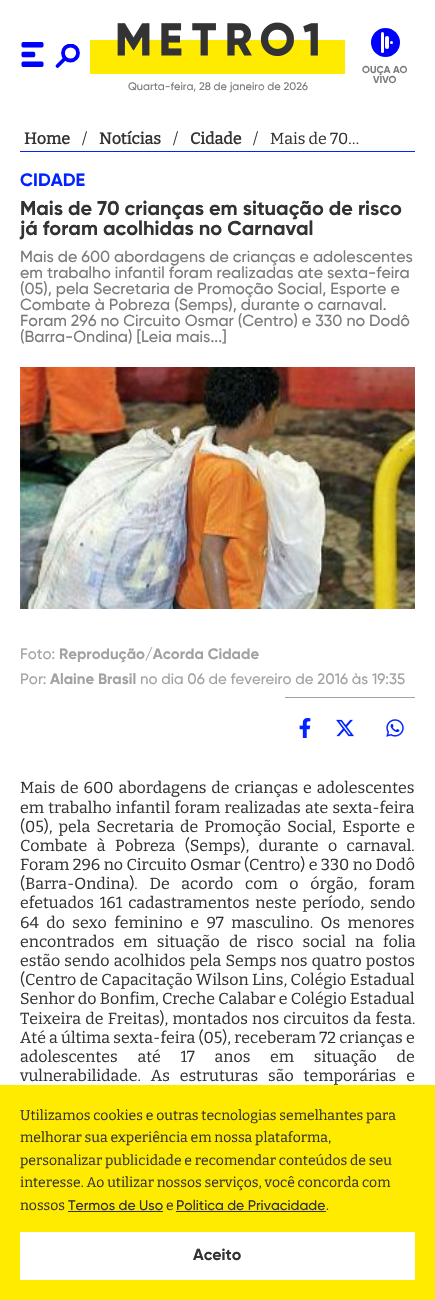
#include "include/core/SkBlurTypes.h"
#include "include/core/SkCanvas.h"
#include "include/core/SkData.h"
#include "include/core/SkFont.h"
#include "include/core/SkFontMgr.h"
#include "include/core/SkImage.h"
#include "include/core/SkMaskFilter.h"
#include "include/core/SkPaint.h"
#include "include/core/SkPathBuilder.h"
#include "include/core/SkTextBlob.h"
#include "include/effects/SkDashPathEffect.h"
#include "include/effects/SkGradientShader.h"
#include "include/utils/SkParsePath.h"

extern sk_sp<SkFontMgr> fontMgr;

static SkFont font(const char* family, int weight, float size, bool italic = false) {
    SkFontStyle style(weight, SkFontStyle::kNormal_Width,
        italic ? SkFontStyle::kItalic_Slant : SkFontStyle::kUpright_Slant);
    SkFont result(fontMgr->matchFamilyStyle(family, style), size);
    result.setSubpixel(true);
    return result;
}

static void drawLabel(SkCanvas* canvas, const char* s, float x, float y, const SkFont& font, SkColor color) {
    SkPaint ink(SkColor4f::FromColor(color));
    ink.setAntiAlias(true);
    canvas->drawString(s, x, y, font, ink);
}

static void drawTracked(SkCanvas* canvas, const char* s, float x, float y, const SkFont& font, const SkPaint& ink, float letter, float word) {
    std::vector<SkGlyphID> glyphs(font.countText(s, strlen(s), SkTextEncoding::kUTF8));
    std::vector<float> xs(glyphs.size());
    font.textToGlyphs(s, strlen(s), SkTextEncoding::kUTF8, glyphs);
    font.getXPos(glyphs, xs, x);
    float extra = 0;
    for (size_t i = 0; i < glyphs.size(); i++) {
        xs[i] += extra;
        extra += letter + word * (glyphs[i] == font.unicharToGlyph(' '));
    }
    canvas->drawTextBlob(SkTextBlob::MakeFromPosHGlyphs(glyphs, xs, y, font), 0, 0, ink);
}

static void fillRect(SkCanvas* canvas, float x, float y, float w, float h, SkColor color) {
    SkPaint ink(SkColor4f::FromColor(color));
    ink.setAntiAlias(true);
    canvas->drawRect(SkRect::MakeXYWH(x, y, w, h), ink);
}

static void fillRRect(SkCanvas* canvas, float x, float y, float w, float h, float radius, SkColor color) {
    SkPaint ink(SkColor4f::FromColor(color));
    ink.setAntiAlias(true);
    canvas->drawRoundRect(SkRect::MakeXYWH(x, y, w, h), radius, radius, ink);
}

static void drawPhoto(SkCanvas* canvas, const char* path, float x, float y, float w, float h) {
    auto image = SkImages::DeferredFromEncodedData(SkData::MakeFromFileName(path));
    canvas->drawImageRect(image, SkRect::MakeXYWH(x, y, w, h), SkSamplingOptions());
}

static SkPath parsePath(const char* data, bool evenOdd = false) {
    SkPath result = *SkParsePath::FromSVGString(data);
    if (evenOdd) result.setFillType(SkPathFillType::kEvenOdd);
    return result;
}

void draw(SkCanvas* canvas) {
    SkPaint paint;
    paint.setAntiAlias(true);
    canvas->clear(0xFFFFFFFF);
    drawPhoto(canvas, "assets/img1.png", 21, 42, 23, 25);
    canvas->save();
    canvas->clipRect(SkRect::MakeXYWH(55, 44, 25, 25));
    paint.setStroke(true);
    paint.setStrokeWidth(3.8f);
    paint.setColor(0xFF0000FF);
    canvas->drawCircle(70.5f, 53, 7.5f, paint);
    canvas->restore();
    paint.setStrokeCap(SkPaint::kRound_Cap);
    canvas->drawPath(parsePath("M64.5 59L57.5 66"), paint);
    paint.setStroke(false);
    canvas->drawCircle(385.5f, 42.5f, 14.5f, paint);
    fillRRect(canvas, 381, 32, 3, 21, 1.5f, 0xFFFFFFFF);
    fillRRect(canvas, 385, 36, 4, 13, 2, 0xFFFFFFFF);
    paint.setColor(0xFFFFFFFF);
    canvas->drawCircle(391.5f, 42.5f, 1.5f, paint);
    SkFont font1 = font("Gilroy", 700, 10);
    drawLabel(canvas, "OUÇA AO", 362, 73, font1, 0xFF7B7B7B);
    drawLabel(canvas, "VIVO", 373, 83, font1, 0xFF7B7B7B);
    drawPhoto(canvas, "assets/img2.png", 90, 22, 255, 52);
    SkFont font2 = font("Gilroy", 500, 11);
    drawLabel(canvas, "Quarta-feira, 28 de janeiro de 2026", 128, 90, font2, 0xFF7B7B7B);
    fillRect(canvas, 20, 151, 395, 1, 0xFF0023FF);
    SkFont font3 = font("Bitter", 700, 16);
    drawLabel(canvas, "Home", 24, 144, font3, 0xFF333333);
    SkFont font4 = font("Bitter", 400, 16);
    drawLabel(canvas, "/", 82, 144, font4, 0xFF333333);
    drawLabel(canvas, "Notícias", 99, 144, font3, 0xFF333333);
    drawLabel(canvas, "/", 173, 144, font4, 0xFF333333);
    drawLabel(canvas, "Cidade", 190, 144, font3, 0xFF333333);
    drawLabel(canvas, "/", 253, 144, font4, 0xFF333333);
    drawLabel(canvas, "Mais de 70…", 270, 144, font4, 0xFF333333);
    SkFont font5 = font("Gilroy", 700, 18);
    drawLabel(canvas, "CIDADE", 20, 186, font5, 0xFF0023FF);
    SkFont font6 = font("Gilroy", 700, 20);
    drawLabel(canvas, "Mais de 70 crianças em situação de risco", 20, 215, font6, 0xFF333333);
    drawLabel(canvas, "já foram acolhidas no Carnaval", 20, 235, font6, 0xFF333333);
    SkFont font7 = font("Gilroy", 500, 16);
    drawLabel(canvas, "Mais de 600 abordagens de crianças e adolescentes", 20, 262, font7, 0xFF7B7B7B);
    drawLabel(canvas, "em trabalho infantil foram realizadas ate sexta-feira", 20, 278, font7, 0xFF7B7B7B);
    drawLabel(canvas, "(05), pela Secretaria de Promoção Social, Esporte e", 20, 294, font7, 0xFF7B7B7B);
    drawLabel(canvas, "Combate à Pobreza (Semps), durante o carnaval.", 20, 310, font7, 0xFF7B7B7B);
    drawLabel(canvas, "Foram 296 no Circuito Osmar (Centro) e 330 no Dodô", 20, 326, font7, 0xFF7B7B7B);
    drawLabel(canvas, "(Barra-Ondina) [Leia mais...]", 20, 342, font7, 0xFF7B7B7B);
    drawPhoto(canvas, "assets/img3.png", 20, 367, 395, 242);
    SkFont font8 = font("Gilroy", 500, 15);
    drawLabel(canvas, "Foto:", 20, 659, font8, 0xFFA2A2A2);
    SkFont font9 = font("Gilroy", 700, 15);
    drawLabel(canvas, "Reprodução/Acorda Cidade", 59, 659, font9, 0xFFA2A2A2);
    drawLabel(canvas, "Por:", 20, 684, font8, 0xFFA2A2A2);
    drawLabel(canvas, "Alaine Brasil", 50, 684, font9, 0xFFA2A2A2);
    drawLabel(canvas, "no dia 06 de fevereiro de 2016 às 19:35", 140, 684, font8, 0xFFA2A2A2);
    fillRect(canvas, 285, 697, 130, 1, 0xFFA2A2A2);
    drawPhoto(canvas, "assets/img4.png", 299, 718, 12, 20);
    drawPhoto(canvas, "assets/img5.png", 336, 719, 18, 18);
    drawPhoto(canvas, "assets/img6.png", 386, 719, 18, 18);
    paint.setColor(0xFF333333);
    drawTracked(canvas, "Mais de 600 abordagens de crianças e adolescentes", 20, 793, font4, paint, 0, 1.75f);
    drawTracked(canvas, "em trabalho infantil foram realizadas ate sexta-feira", 20, 813, font4, paint, 0, 1);
    drawTracked(canvas, "(05), pela Secretaria de Promoção Social, Esporte e", 20, 832, font4, paint, 0, 3);
    drawTracked(canvas, "Combate à Pobreza (Semps), durante o carnaval.", 20, 851, font4, paint, 0, 6.25f);
    drawTracked(canvas, "Foram 296 no Circuito Osmar (Centro) e 330 no Dodô", 20, 870, font4, paint, 0, 0.25f);
    drawTracked(canvas, "(Barra-Ondina). De acordo com o órgão, foram", 20, 889, font4, paint, 0, 8.5f);
    drawTracked(canvas, "efetuados 161 cadastramentos neste período, sendo", 20, 908, font4, paint, 0, 2.75f);
    drawTracked(canvas, "64 do sexo feminino e 97 masculino. Os menores", 20, 928, font4, paint, 0, 4.25f);
    drawTracked(canvas, "encontrados em situação de risco social na folia", 20, 947, font4, paint, 0, 6);
    drawTracked(canvas, "estão sendo acolhidos pela Semps nos quatro postos", 20, 966, font4, paint, 0, 1);
    drawTracked(canvas, "(Centro de Capacitação Wilson Lins, Colégio Estadual", 20, 985, font4, paint, 0, 0.25f);
    drawLabel(canvas, "Senhor do Bonfim, Creche Calabar e Colégio Estadual", 20, 1004, font4, 0xFF333333);
    drawTracked(canvas, "Teixeira de Freitas), montados nos circuitos da festa.", 20, 1024, font4, paint, 0, 1);
    drawLabel(canvas, "Até a última sexta-feira (05), receberam 72 crianças e", 20, 1043, font4, 0xFF333333);
    drawTracked(canvas, "adolescentes até 17 anos em situação de", 20, 1062, font4, paint, 0, 16.5f);
    drawTracked(canvas, "vulnerabilidade. As estruturas são temporárias e", 20, 1081, font4, paint, 0, 6.75f);
    fillRect(canvas, 0, 1085, 435, 215, 0xFFFFEB00);
    SkFont font10 = font("Bitter", 400, 14);
    drawLabel(canvas, "Utilizamos cookies e outras tecnologias semelhantes para", 20, 1120, font10, 0xFF333333);
    drawLabel(canvas, "melhorar sua experiência em nossa plataforma,", 20, 1142, font10, 0xFF333333);
    drawLabel(canvas, "personalizar publicidade e recomendar conteúdos de seu", 20, 1165, font10, 0xFF333333);
    drawLabel(canvas, "interesse. Ao utilizar nossos serviços, você concorda com", 20, 1187, font10, 0xFF333333);
    drawLabel(canvas, "nossos", 20, 1210, font10, 0xFF333333);
    SkFont font11 = font("Gilroy", 500, 14);
    drawLabel(canvas, "Termos de Uso", 68, 1210, font11, 0xFF333333);
    fillRect(canvas, 68, 1211, 95, 1, 0xFF333333);
    drawLabel(canvas, "e", 166, 1210, font10, 0xFF333333);
    drawLabel(canvas, "Politica de Privacidade", 176, 1210, font11, 0xFF333333);
    fillRect(canvas, 176, 1211, 150, 1, 0xFF333333);
    drawLabel(canvas, ".", 326, 1210, font10, 0xFF333333);
    fillRect(canvas, 20, 1232, 395, 48, 0xFFFFFFFF);
    SkFont font12 = font("Gilroy", 700, 16);
    drawLabel(canvas, "Aceito", 193, 1260, font12, 0xFF333333);
}
